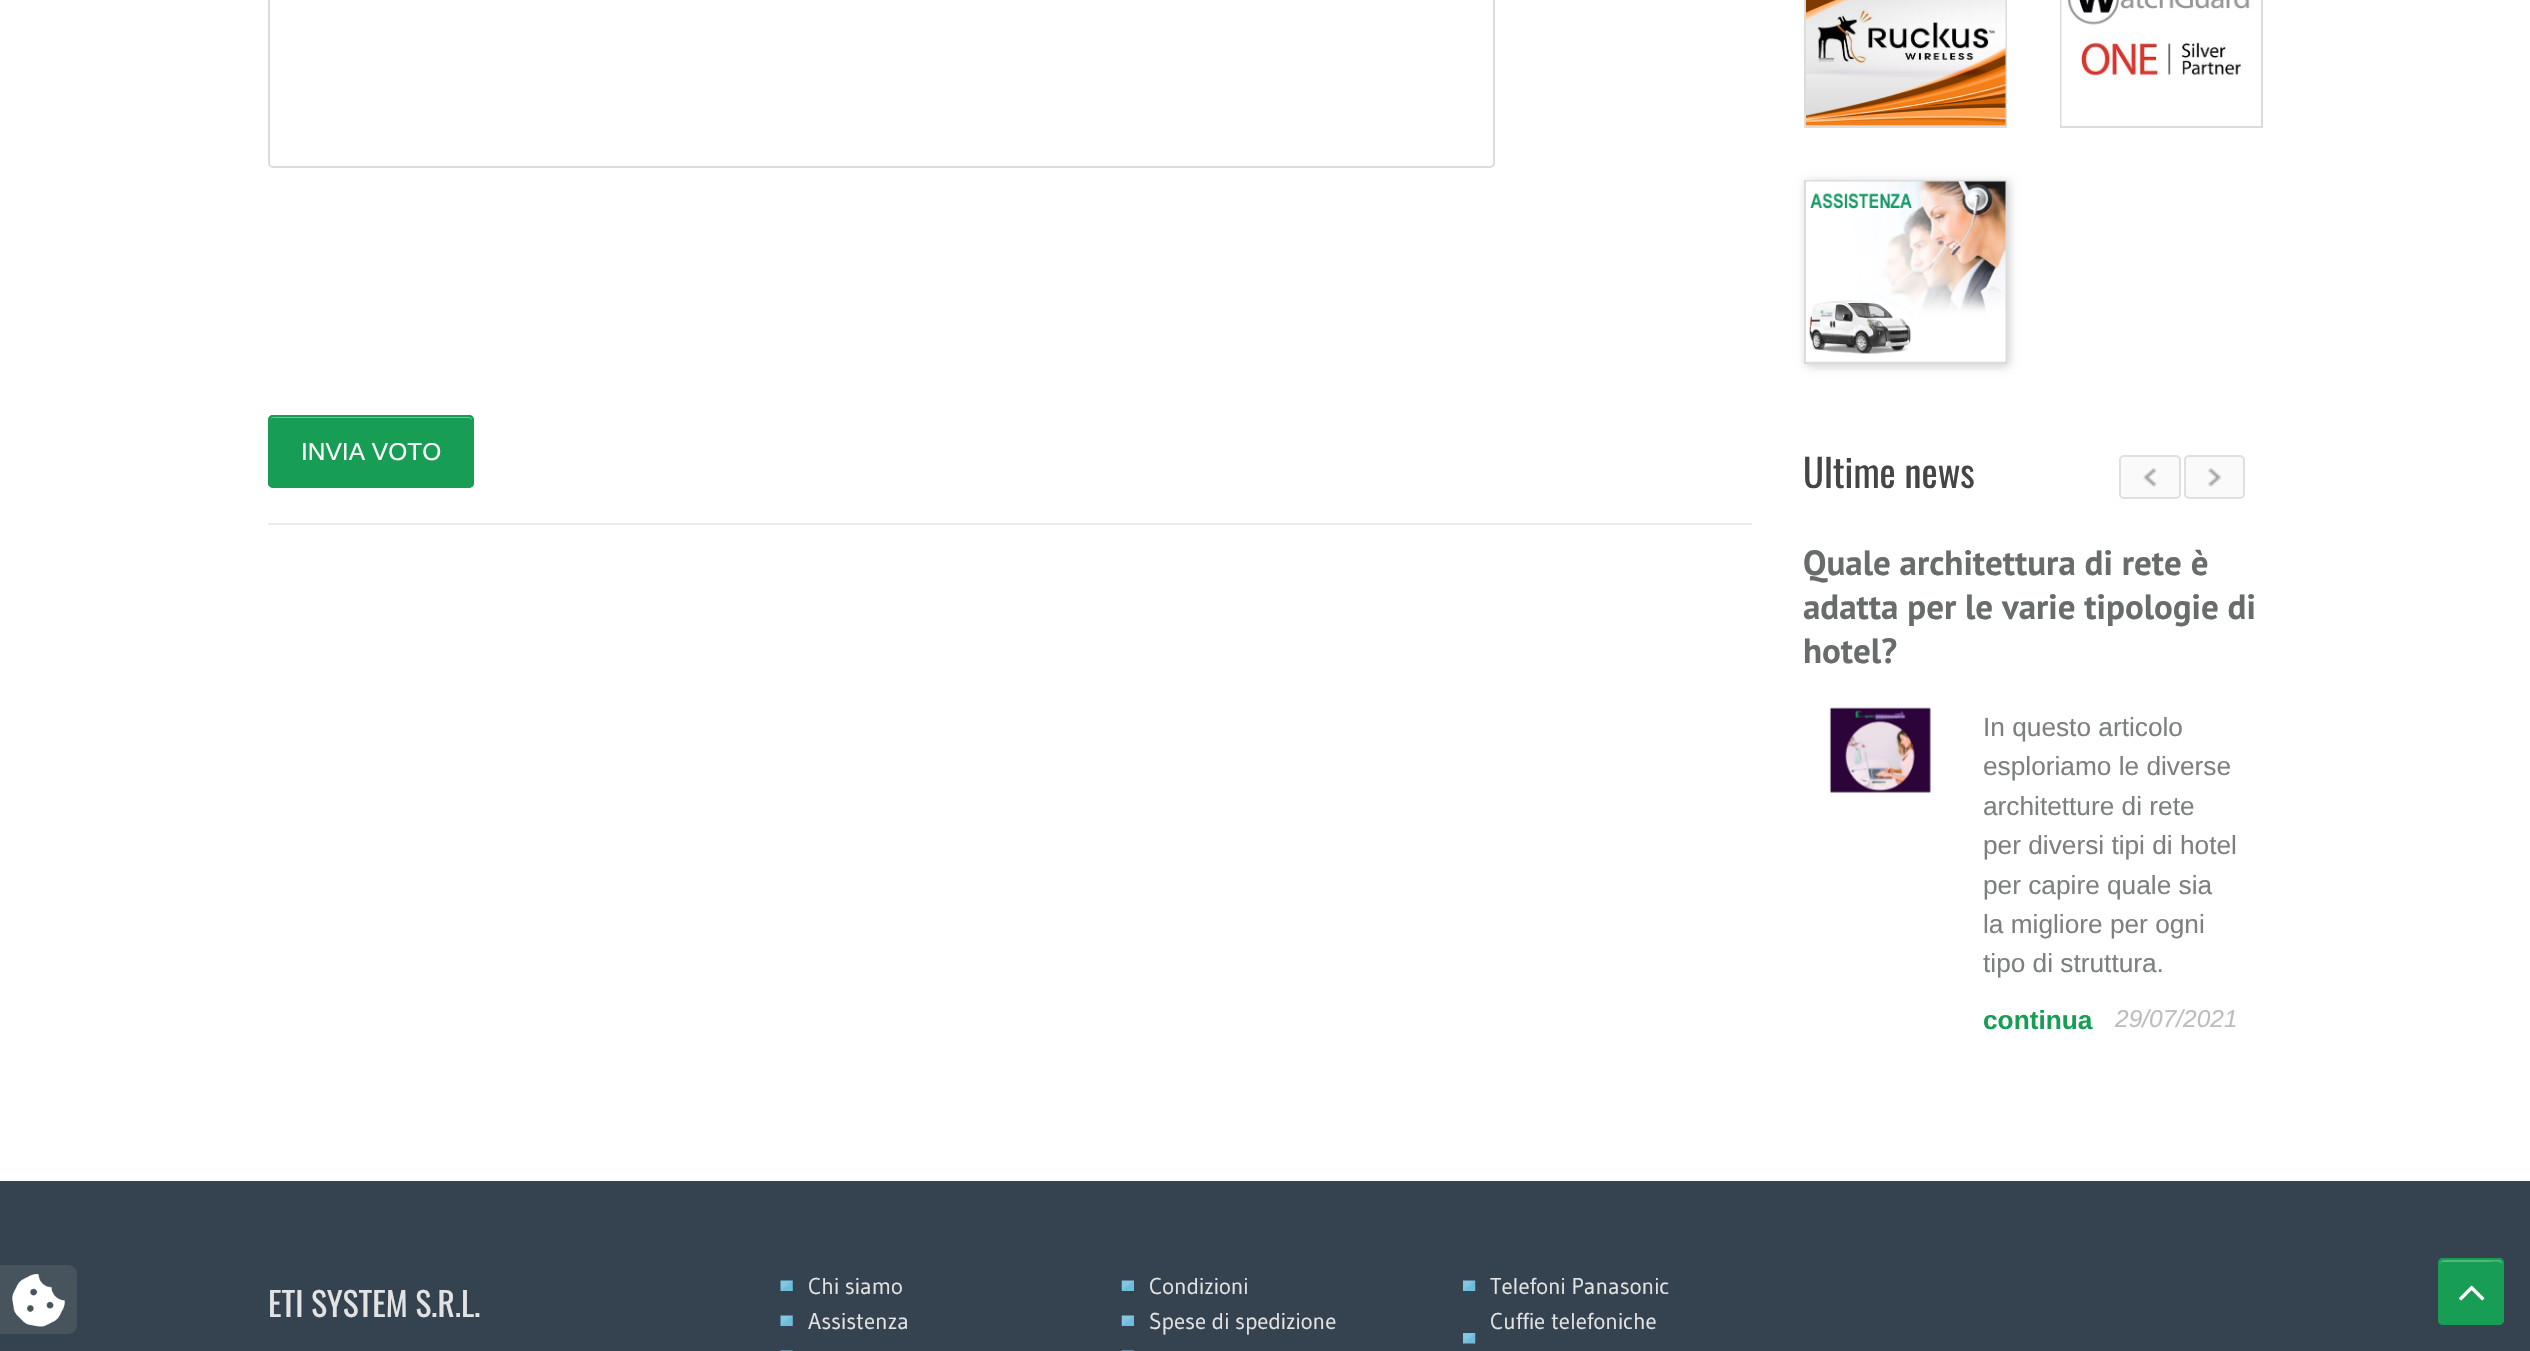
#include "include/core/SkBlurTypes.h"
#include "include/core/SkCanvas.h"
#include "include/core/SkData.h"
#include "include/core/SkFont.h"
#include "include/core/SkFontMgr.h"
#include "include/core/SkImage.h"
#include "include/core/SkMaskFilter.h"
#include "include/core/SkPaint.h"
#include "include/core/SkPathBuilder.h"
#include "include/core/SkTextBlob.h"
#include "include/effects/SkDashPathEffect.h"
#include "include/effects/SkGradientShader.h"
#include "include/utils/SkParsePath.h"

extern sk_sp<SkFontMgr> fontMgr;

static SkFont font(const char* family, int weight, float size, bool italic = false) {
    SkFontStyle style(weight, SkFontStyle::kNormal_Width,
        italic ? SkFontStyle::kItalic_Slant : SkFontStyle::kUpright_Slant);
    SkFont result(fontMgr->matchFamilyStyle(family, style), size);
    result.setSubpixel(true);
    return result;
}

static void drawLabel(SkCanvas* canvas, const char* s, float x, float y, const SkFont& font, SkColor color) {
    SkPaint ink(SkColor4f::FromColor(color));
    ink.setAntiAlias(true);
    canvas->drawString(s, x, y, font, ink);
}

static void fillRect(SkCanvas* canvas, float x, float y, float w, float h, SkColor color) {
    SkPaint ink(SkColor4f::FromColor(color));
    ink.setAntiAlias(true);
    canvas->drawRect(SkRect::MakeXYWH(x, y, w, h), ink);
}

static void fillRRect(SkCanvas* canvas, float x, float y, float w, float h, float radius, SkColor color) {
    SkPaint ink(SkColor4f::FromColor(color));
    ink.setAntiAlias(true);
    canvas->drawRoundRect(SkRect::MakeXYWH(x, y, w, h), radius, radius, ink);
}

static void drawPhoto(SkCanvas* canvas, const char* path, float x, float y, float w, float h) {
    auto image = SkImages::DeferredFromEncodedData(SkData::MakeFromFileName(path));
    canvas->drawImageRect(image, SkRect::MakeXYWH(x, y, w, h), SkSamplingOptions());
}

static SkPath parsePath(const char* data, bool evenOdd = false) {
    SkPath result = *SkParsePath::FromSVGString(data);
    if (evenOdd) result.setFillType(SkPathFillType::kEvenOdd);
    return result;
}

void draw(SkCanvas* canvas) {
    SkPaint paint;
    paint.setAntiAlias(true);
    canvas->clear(0xFFFFFFFF);
    fillRect(canvas, 0, 1181, 2530, 170, 0xFF35424F);
    paint.setColor(0xFF47545D);
    canvas->drawPath(parsePath("M0 1265H68C73 1265 77 1269 77 1274V1325C77 1330 73 1334 68 1334H0Z"), paint);
    drawPhoto(canvas, "assets/img1.png", 12, 1274, 53, 53);
    paint.setStroke(true);
    paint.setStrokeWidth(2);
    paint.setColor(0xFFDCDCDC);
    canvas->drawRoundRect(SkRect::MakeXYWH(269, -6, 1225, 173), 4, 4, paint);
    fillRRect(canvas, 268, 415, 206, 73, 5, 0xFF179D54);
    paint.setStroke(false);
    paint.setColor(0xFF74C498);
    canvas->drawPath(parsePath("M273 418H469C474 418 472 427 472 432V486C473 485 473 484 473 483V421C473 419 471 417 469 417H274C272 417 270 419 270 421V422C270 420 271 418 273 418Z"), paint);
    paint.setStroke(true);
    paint.setColor(0xFF179D54);
    canvas->drawRoundRect(SkRect::MakeXYWH(269, 416, 204, 71), 4, 4, paint);
    SkFont font1 = font("Liberation Sans", 400, 24.5f);
    drawLabel(canvas, "INVIA VOTO", 301, 460, font1, 0xFFFFFFFF);
    fillRect(canvas, 268, 523, 1484, 2, 0xFFEBEBEB);
    paint.setColor(0xFFDCDCDC);
    canvas->drawRect(SkRect::MakeXYWH(1805, -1, 201, 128), paint);
    drawPhoto(canvas, "assets/img2.png", 1806, 0, 200, 126);
    canvas->drawRect(SkRect::MakeXYWH(2061, -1, 201, 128), paint);
    drawPhoto(canvas, "assets/img3.png", 2061, 0, 193, 126);
    paint.setStroke(false);
    paint.setColor(0xFFCCCCCC);
    paint.setMaskFilter(SkMaskFilter::MakeBlur(kNormal_SkBlurStyle, 4.5f));
    canvas->drawRect(SkRect::MakeXYWH(1806, 182, 203, 184), paint);
    paint.setMaskFilter(nullptr);
    paint.setStroke(true);
    paint.setColor(0xFFDCDCDC);
    canvas->drawRect(SkRect::MakeXYWH(1805, 181, 201, 182), paint);
    drawPhoto(canvas, "assets/img4.png", 1806, 181, 200, 181);
    SkFont font2 = font("Oswald", 400, 38.5f);
    drawLabel(canvas, "Ultime news", 1803, 488, font2, 0xFF444645);
    fillRRect(canvas, 2119, 455, 62, 44, 5, 0xFFFAFAFA);
    drawPhoto(canvas, "assets/img5.png", 2143, 468, 14, 19);
    paint.setColor(0xFFE0E0E0);
    canvas->drawRoundRect(SkRect::MakeXYWH(2120, 456, 60, 42), 4, 4, paint);
    fillRRect(canvas, 2184, 455, 61, 44, 5, 0xFFFAFAFA);
    drawPhoto(canvas, "assets/img6.png", 2208, 468, 14, 19);
    canvas->drawRoundRect(SkRect::MakeXYWH(2185, 456, 59, 42), 4, 4, paint);
    SkFont font3 = font("PT Sans", 700, 35);
    drawLabel(canvas, "Quale architettura di rete è", 1803, 575, font3, 0xFF686C6B);
    drawLabel(canvas, "adatta per le varie tipologie di", 1803, 619, font3, 0xFF686C6B);
    drawLabel(canvas, "hotel?", 1803, 663, font3, 0xFF686C6B);
    drawPhoto(canvas, "assets/img7.png", 1829, 707, 102, 86);
    SkFont font4 = font("Liberation Sans", 400, 26.25f);
    drawLabel(canvas, "In questo articolo", 1983, 736, font4, 0xFF7C807E);
    drawLabel(canvas, "esploriamo le diverse", 1983, 775, font4, 0xFF7C807E);
    drawLabel(canvas, "architetture di rete", 1983, 815, font4, 0xFF7C807E);
    drawLabel(canvas, "per diversi tipi di hotel", 1983, 854, font4, 0xFF7C807E);
    drawLabel(canvas, "per capire quale sia", 1983, 894, font4, 0xFF7C807E);
    drawLabel(canvas, "la migliore per ogni", 1983, 933, font4, 0xFF7C807E);
    drawLabel(canvas, "tipo di struttura.", 1983, 972, font4, 0xFF7C807E);
    SkFont font5 = font("Liberation Sans", 700, 26.25f);
    drawLabel(canvas, "continua", 1983, 1029, font5, 0xFF179D54);
    SkFont font6 = font("Liberation Sans", 400, 24.5f, true);
    drawLabel(canvas, "29/07/2021", 2115, 1027, font6, 0xFFBDBDBD);
    SkFont font7 = font("Oswald", 400, 33.25f);
    drawLabel(canvas, "ETI SYSTEM S.R.L.", 268, 1317, font7, 0xFFE3E3E3);
    drawPhoto(canvas, "assets/img8.png", 780, 1280, 13, 11);
    SkFont font8 = font("Gudea", 400, 22.75f);
    drawLabel(canvas, "Chi siamo", 808, 1294, font8, 0xFFE3E3E3);
    drawPhoto(canvas, "assets/img8.png", 780, 1315, 13, 11);
    drawLabel(canvas, "Assistenza", 808, 1329, font8, 0xFFE3E3E3);
    drawPhoto(canvas, "assets/img9.png", 780, 1350, 13, 1);
    drawPhoto(canvas, "assets/img10.png", 1121, 1280, 13, 11);
    drawLabel(canvas, "Condizioni", 1149, 1294, font8, 0xFFE3E3E3);
    drawPhoto(canvas, "assets/img10.png", 1121, 1315, 13, 11);
    drawLabel(canvas, "Spese di spedizione", 1149, 1329, font8, 0xFFE3E3E3);
    drawPhoto(canvas, "assets/img11.png", 1121, 1350, 13, 1);
    drawPhoto(canvas, "assets/img12.png", 1463, 1280, 13, 11);
    drawLabel(canvas, "Telefoni Panasonic", 1490, 1294, font8, 0xFFE3E3E3);
    drawPhoto(canvas, "assets/img13.png", 1463, 1333, 13, 11);
    drawLabel(canvas, "Cuffie telefoniche", 1490, 1329, font8, 0xFFE3E3E3);
    fillRRect(canvas, 2438, 1258, 66, 67, 5, 0xFF179D54);
    paint.setStroke(false);
    paint.setColor(0xFF51B67F);
    canvas->drawPath(parsePath("M2443 1262H2490C2491 1262 2502 1260 2502 1265V1322C2503 1321 2503 1320 2503 1319V1264C2503 1262 2501 1260 2499 1260H2444C2442 1260 2440 1262 2440 1264V1265C2440 1263 2441 1262 2443 1262Z"), paint);
    paint.setStroke(true);
    paint.setColor(0xFF179D54);
    canvas->drawRoundRect(SkRect::MakeXYWH(2439, 1259, 64, 65), 4, 4, paint);
    drawPhoto(canvas, "assets/img14.png", 2459, 1285, 26, 16);
}
